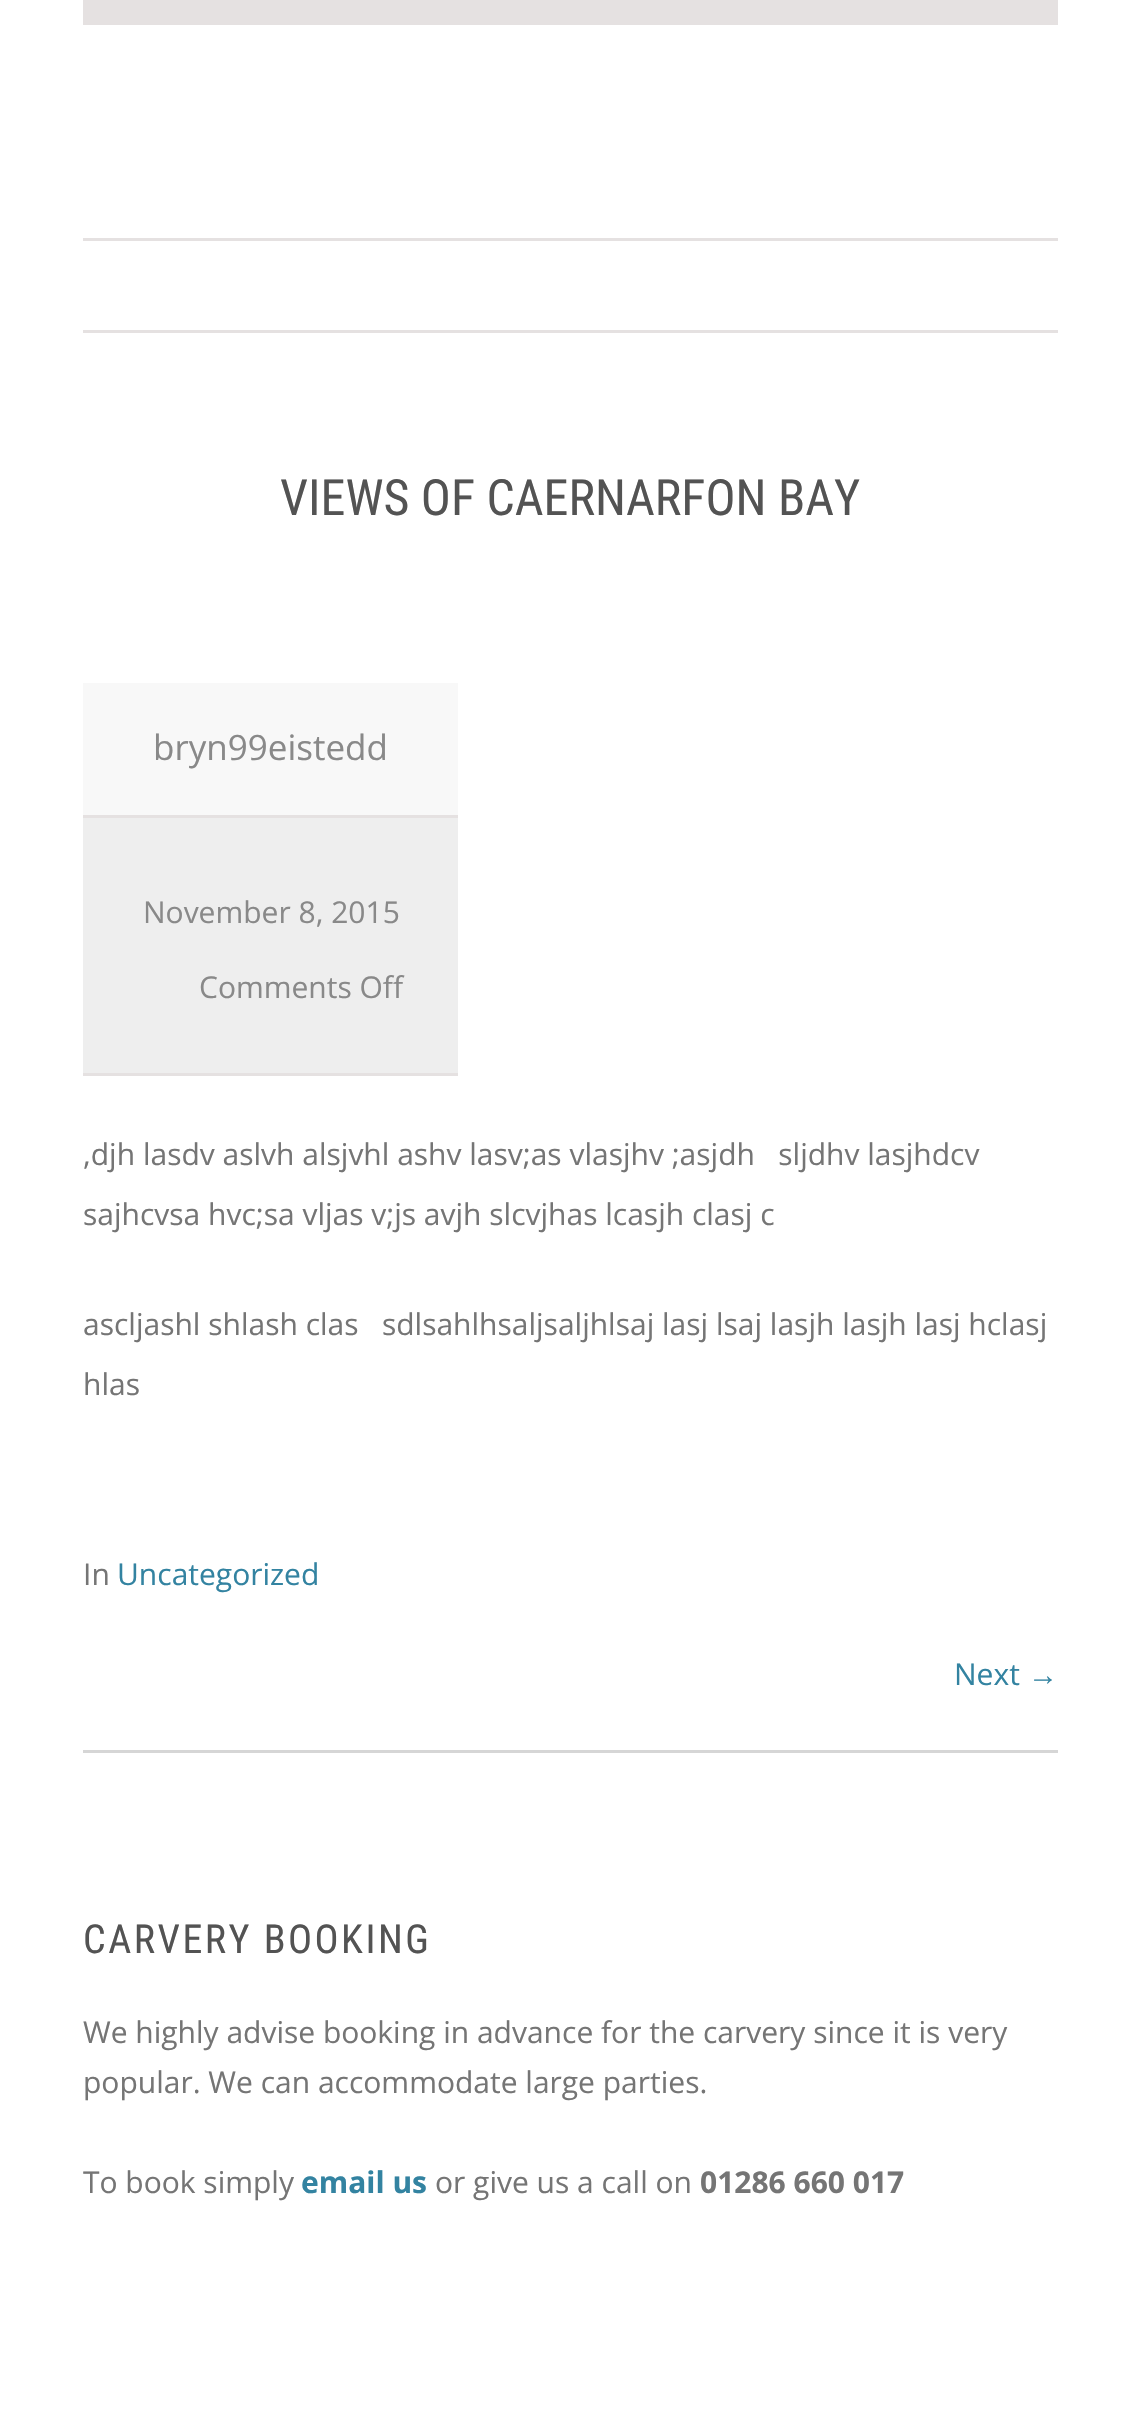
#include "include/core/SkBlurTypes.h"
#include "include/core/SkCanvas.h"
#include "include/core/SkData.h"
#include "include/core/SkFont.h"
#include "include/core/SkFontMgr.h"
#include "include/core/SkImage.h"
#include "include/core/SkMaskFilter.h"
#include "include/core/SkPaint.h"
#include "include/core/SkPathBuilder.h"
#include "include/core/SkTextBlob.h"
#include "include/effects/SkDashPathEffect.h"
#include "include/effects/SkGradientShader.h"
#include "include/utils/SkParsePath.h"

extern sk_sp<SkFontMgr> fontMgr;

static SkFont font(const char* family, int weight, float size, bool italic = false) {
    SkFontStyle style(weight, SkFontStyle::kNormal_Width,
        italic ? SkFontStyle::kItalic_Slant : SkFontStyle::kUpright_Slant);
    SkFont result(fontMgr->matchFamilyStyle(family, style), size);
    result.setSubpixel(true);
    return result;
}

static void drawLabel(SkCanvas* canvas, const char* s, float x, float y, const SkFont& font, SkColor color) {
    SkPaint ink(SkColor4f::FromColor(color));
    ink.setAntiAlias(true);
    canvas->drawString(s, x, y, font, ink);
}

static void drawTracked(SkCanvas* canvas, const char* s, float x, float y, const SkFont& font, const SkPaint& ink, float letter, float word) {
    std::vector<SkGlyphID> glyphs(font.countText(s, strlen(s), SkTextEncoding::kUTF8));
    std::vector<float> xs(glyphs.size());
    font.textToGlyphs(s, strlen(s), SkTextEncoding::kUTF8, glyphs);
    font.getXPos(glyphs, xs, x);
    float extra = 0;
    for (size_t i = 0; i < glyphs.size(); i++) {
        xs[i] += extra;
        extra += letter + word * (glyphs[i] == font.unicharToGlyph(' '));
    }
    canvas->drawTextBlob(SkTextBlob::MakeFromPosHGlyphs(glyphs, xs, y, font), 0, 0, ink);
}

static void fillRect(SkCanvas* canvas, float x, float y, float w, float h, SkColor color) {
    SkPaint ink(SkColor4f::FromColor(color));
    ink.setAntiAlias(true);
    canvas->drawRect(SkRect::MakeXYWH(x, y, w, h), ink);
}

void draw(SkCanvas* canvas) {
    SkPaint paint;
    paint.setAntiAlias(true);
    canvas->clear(0xFFFFFFFF);
    fillRect(canvas, 83, 0, 975, 25, 0xFFE5E1E1);
    fillRect(canvas, 83, 238, 975, 3, 0xFFE5E1E1);
    fillRect(canvas, 83, 330, 975, 3, 0xFFE5E1E1);
    SkFont font1 = font("Roboto Condensed", 400, 50);
    drawLabel(canvas, "VIEWS OF CAERNARFON BAY", 280, 515, font1, 0xFF535353);
    fillRect(canvas, 83, 683, 375, 132, 0xFFF8F8F8);
    fillRect(canvas, 83, 815, 375, 3, 0xFFE5E1E1);
    SkFont font2 = font("Open Sans", 400, 35);
    drawLabel(canvas, "bryn99eistedd", 153, 760, font2, 0xFF898989);
    fillRect(canvas, 83, 818, 375, 255, 0xFFEEEEEE);
    fillRect(canvas, 83, 1073, 375, 3, 0xFFE5E1E1);
    SkFont font3 = font("Open Sans", 400, 30);
    drawLabel(canvas, "November 8, 2015", 143, 923, font3, 0xFF898989);
    drawLabel(canvas, "Comments Off", 199, 998, font3, 0xFF898989);
    fillRect(canvas, 83, 1750, 975, 3, 0xFFD6D6D6);
    drawLabel(canvas, ",djh lasdv aslvh alsjvhl ashv lasv;as vlasjhv ;asjdh   sljdhv lasjhdcv", 83, 1165, font3, 0xFF757575);
    drawLabel(canvas, "sajhcvsa hvc;sa vljas v;js avjh slcvjhas lcasjh clasj c", 83, 1225, font3, 0xFF757575);
    drawLabel(canvas, "ascljashl shlash clas   sdlsahlhsaljsaljhlsaj lasj lsaj lasjh lasjh lasj hclasj", 83, 1335, font3, 0xFF757575);
    drawLabel(canvas, "hlas", 83, 1395, font3, 0xFF757575);
    drawLabel(canvas, "In", 83, 1585, font3, 0xFF757575);
    drawLabel(canvas, "Uncategorized", 117, 1585, font3, 0xFF3383A1);
    drawLabel(canvas, "Next", 954, 1685, font3, 0xFF3383A1);
    SkFont font4 = font("Liberation Sans", 400, 30);
    drawLabel(canvas, "→", 1028, 1685, font4, 0xFF3383A1);
    SkFont font5 = font("Roboto Condensed", 400, 40);
    paint.setColor(0xFF535353);
    drawTracked(canvas, "CARVERY BOOKING", 83, 1953, font5, paint, 2.5f, 0);
    drawLabel(canvas, "We highly advise booking in advance for the carvery since it is very", 83, 2043, font3, 0xFF757575);
    drawLabel(canvas, "popular. We can accommodate large parties.", 83, 2093, font3, 0xFF757575);
    drawLabel(canvas, "To book simply", 83, 2193, font3, 0xFF757575);
    SkFont font6 = font("Open Sans", 700, 30);
    drawLabel(canvas, "email us", 301, 2193, font6, 0xFF3383A1);
    drawLabel(canvas, "or give us a call on", 435, 2193, font3, 0xFF757575);
    drawLabel(canvas, "01286 660 017", 700, 2193, font6, 0xFF757575);
}
